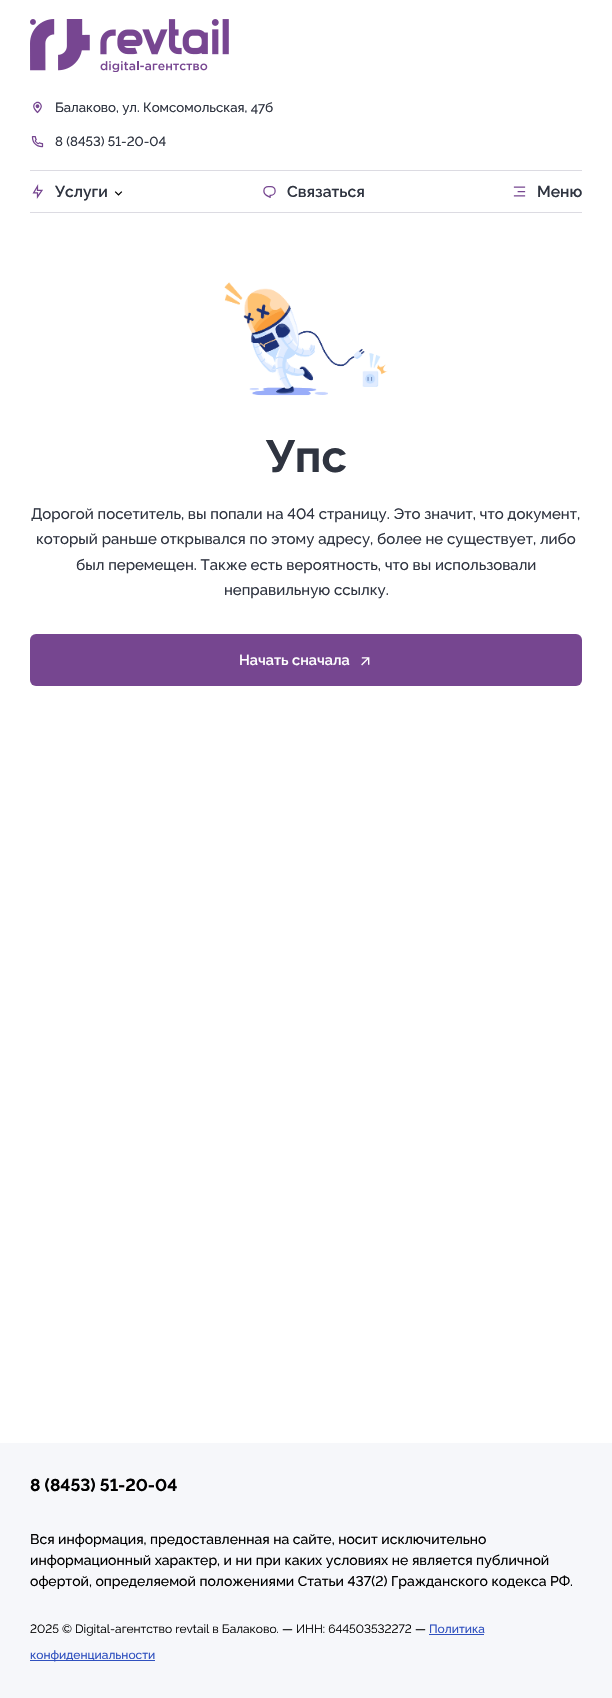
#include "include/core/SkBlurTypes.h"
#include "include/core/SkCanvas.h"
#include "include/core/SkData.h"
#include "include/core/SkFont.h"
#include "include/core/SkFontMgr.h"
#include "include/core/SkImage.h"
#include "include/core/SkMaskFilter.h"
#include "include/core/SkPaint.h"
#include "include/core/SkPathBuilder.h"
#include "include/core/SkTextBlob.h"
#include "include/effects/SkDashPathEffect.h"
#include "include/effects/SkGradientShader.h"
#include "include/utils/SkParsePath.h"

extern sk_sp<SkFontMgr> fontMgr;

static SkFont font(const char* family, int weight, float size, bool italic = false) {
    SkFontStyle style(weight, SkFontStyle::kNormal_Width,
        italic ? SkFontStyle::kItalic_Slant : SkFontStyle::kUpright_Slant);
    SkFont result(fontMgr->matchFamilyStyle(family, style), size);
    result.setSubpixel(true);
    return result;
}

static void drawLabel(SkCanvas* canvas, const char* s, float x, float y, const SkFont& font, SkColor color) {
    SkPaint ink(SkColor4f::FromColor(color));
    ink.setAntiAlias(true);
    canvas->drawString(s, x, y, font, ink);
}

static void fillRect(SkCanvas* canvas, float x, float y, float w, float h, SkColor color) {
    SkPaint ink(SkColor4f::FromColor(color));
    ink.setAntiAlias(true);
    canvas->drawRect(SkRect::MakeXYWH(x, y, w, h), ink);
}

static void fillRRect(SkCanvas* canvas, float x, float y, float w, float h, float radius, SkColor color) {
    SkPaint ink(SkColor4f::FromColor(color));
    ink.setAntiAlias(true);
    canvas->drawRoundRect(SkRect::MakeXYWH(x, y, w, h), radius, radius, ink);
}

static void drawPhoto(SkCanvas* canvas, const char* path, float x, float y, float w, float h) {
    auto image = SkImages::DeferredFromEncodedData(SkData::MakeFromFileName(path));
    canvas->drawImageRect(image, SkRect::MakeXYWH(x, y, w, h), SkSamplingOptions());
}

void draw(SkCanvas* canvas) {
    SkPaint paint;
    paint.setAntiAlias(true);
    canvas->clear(0xFFFFFFFF);
    drawPhoto(canvas, "assets/img1.png", 30, 19, 199, 53);
    drawPhoto(canvas, "assets/img2.png", 33, 101, 9, 13);
    SkFont font1 = font("Raleway", 100, 13.25f);
    drawLabel(canvas, "Балаково, ул. Комсомольская, 47б", 55, 112, font1, 0xFF2F3440);
    drawPhoto(canvas, "assets/img3.png", 31, 136, 13, 12);
    SkFont font2 = font("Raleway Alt", 100, 13.25f);
    drawLabel(canvas, "8 (8453) 51-20-04", 55, 146, font2, 0xFF2F3440);
    fillRect(canvas, 30, 170, 552, 1, 0xFFDCDBE2);
    fillRect(canvas, 30, 212, 552, 1, 0xFFDCDBE2);
    drawPhoto(canvas, "assets/img4.png", 32, 184, 11, 15);
    SkFont font3 = font("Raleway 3", 100, 15.75f);
    drawLabel(canvas, "Услуги", 55, 197, font3, 0xFF2F3440);
    drawPhoto(canvas, "assets/img5.png", 114, 191, 9, 5);
    drawPhoto(canvas, "assets/img6.png", 263, 186, 13, 12);
    drawLabel(canvas, "Связаться", 287, 197, font3, 0xFF2F3440);
    drawPhoto(canvas, "assets/img7.png", 513, 186, 13, 11);
    drawLabel(canvas, "Меню", 537, 197, font3, 0xFF2F3440);
    drawPhoto(canvas, "assets/img8.png", 224, 282, 164, 114);
    SkFont font4 = font("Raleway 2", 100, 45);
    drawLabel(canvas, "Упс", 266, 472, font4, 0xFF2F3440);
    SkFont font5 = font("Raleway Alt", 100, 15);
    drawLabel(canvas, "Дорогой посетитель, вы попали на 404 страницу. Это значит, что документ,", 31, 519, font5, 0xFF2F3440);
    SkFont font6 = font("Raleway", 100, 15);
    drawLabel(canvas, "который раньше открывался по этому адресу, более не существует, либо", 36, 544, font6, 0xFF2F3440);
    drawLabel(canvas, "был перемещен. Также есть вероятность, что вы использовали", 76, 570, font6, 0xFF2F3440);
    drawLabel(canvas, "неправильную ссылку.", 224, 595, font6, 0xFF2F3440);
    fillRRect(canvas, 30, 634, 552, 52, 6, 0xFF764690);
    SkFont font7 = font("Raleway 3", 100, 14.5f);
    drawLabel(canvas, "Начать сначала", 239, 665, font7, 0xFFFFFFFF);
    drawPhoto(canvas, "assets/img9.png", 361, 657, 9, 9);
    fillRect(canvas, 0, 1443, 612, 255, 0xFFF6F7FA);
    SkFont font8 = font("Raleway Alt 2", 100, 17.25f);
    drawLabel(canvas, "8 (8453) 51-20-04", 30, 1491, font8, 0xFF000000);
    SkFont font9 = font("Raleway", 100, 14);
    drawLabel(canvas, "Вся информация, предоставленная на сайте, носит исключительно", 30, 1544, font9, 0xFF000000);
    drawLabel(canvas, "информационный характер, и ни при каких условиях не является публичной", 30, 1565, font9, 0xFF000000);
    SkFont font10 = font("Raleway Alt", 100, 14);
    drawLabel(canvas, "офертой, определяемой положениями Статьи 437(2) Гражданского кодекса РФ.", 30, 1586, font10, 0xFF000000);
    SkFont font11 = font("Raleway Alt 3", 100, 12);
    drawLabel(canvas, "2025 ©", 30, 1633, font11, 0xFF000000);
    SkFont font12 = font("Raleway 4", 100, 12);
    drawLabel(canvas, "Digital-агентство revtail в Балаково.", 75, 1633, font12, 0xFF000000);
    SkFont font13 = font("Raleway", 100, 12);
    drawLabel(canvas, "—", 282, 1633, font13, 0xFF000000);
    drawLabel(canvas, "ИНН: 644503532272", 296, 1633, font11, 0xFF000000);
    drawLabel(canvas, "—", 415, 1633, font13, 0xFF000000);
    drawLabel(canvas, "Политика", 429, 1633, font13, 0xFF3051BF);
    fillRect(canvas, 429, 1634, 55, 1, 0xFF3051BF);
    fillRect(canvas, 30, 1660, 125, 1, 0xFF3051BF);
    drawLabel(canvas, "конфиденциальности", 30, 1659, font13, 0xFF3051BF);
}
